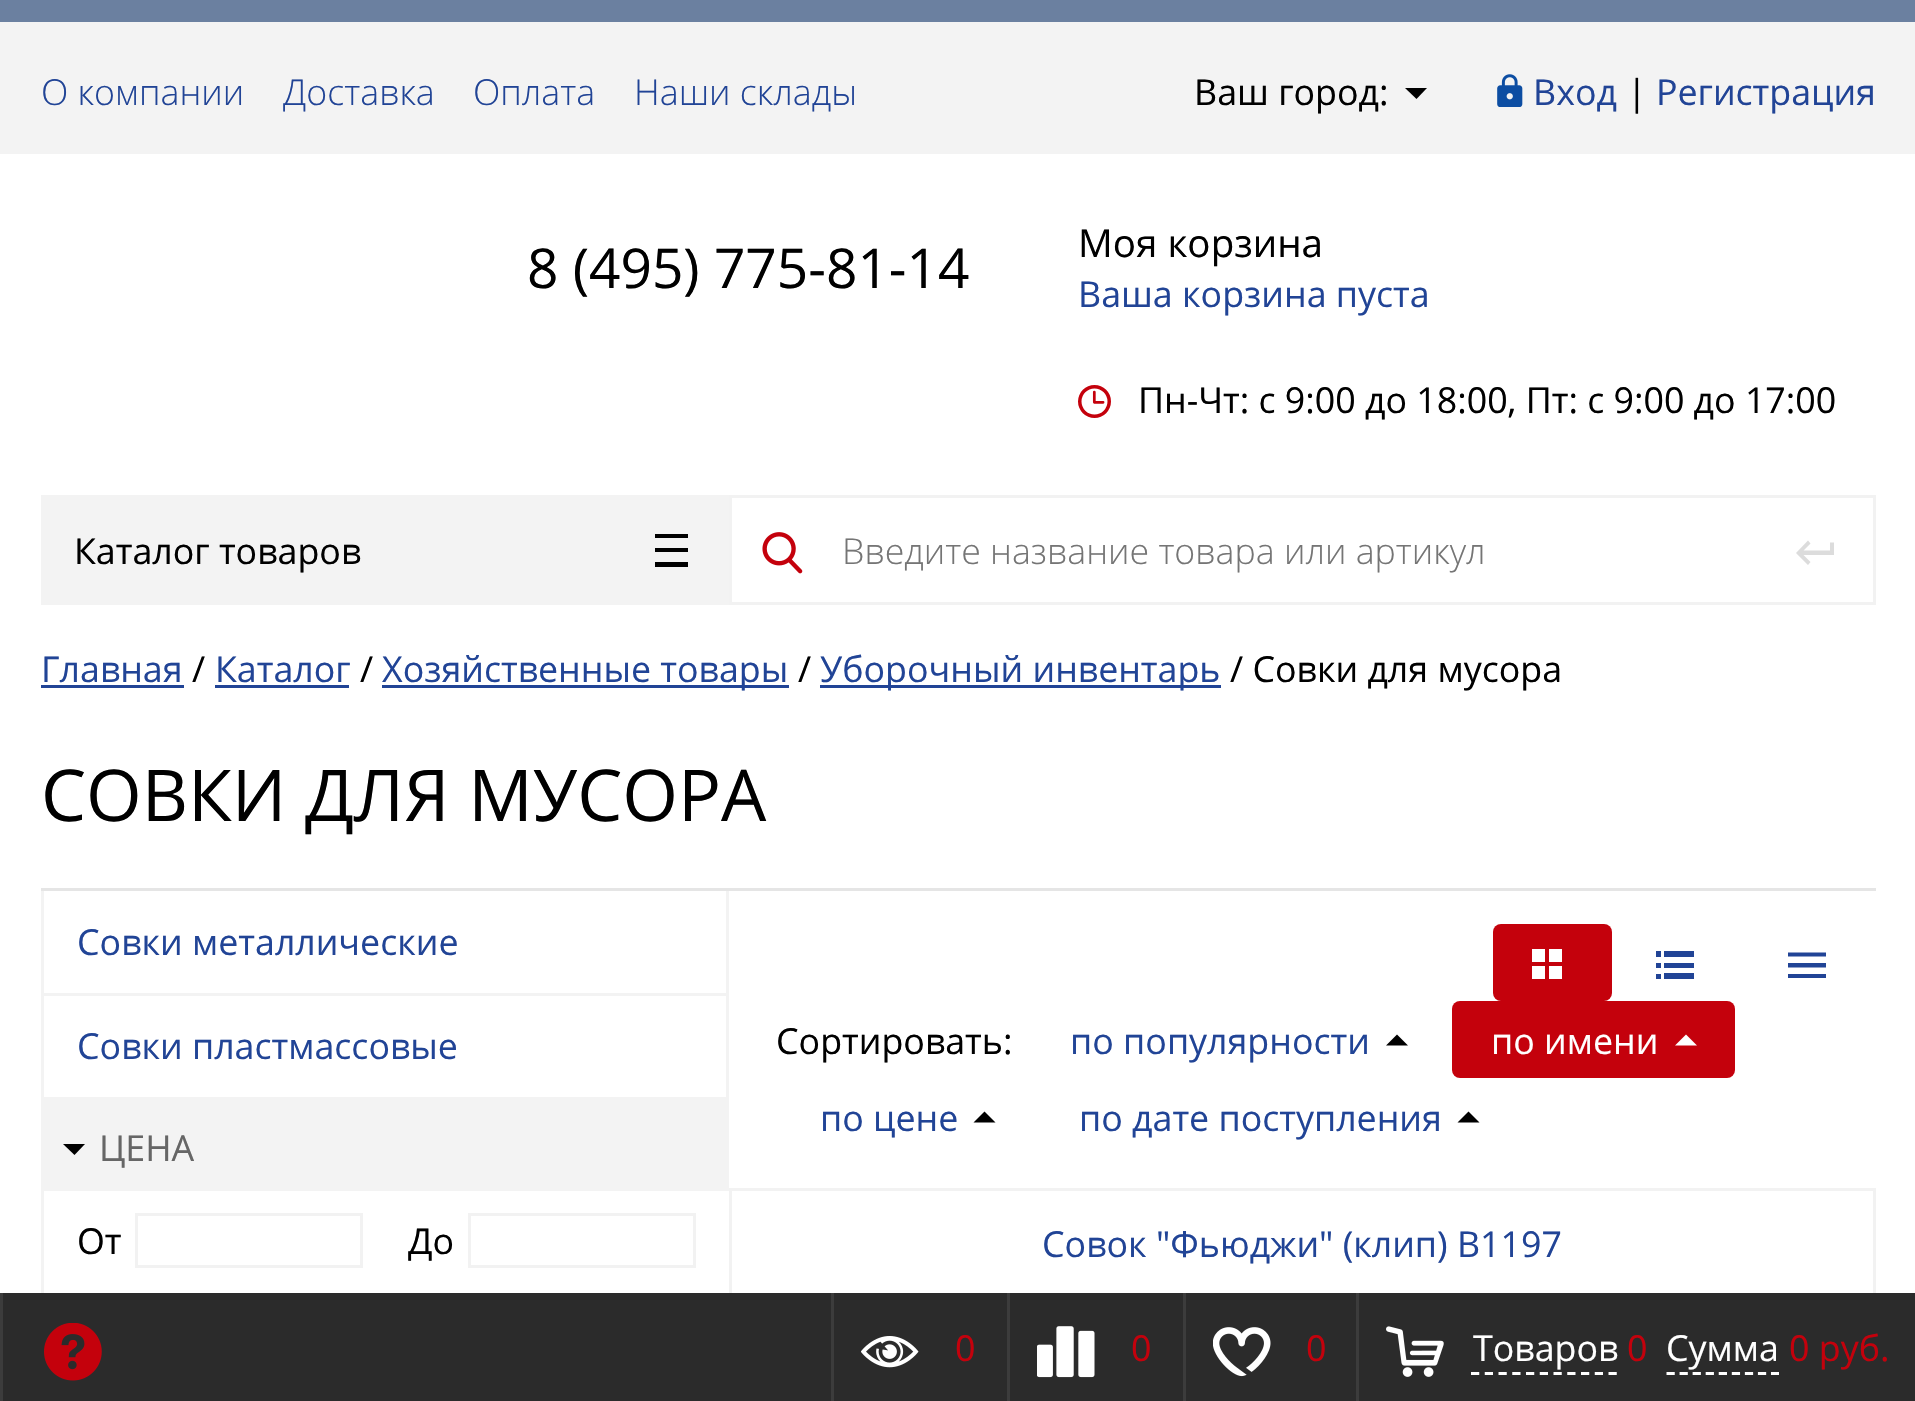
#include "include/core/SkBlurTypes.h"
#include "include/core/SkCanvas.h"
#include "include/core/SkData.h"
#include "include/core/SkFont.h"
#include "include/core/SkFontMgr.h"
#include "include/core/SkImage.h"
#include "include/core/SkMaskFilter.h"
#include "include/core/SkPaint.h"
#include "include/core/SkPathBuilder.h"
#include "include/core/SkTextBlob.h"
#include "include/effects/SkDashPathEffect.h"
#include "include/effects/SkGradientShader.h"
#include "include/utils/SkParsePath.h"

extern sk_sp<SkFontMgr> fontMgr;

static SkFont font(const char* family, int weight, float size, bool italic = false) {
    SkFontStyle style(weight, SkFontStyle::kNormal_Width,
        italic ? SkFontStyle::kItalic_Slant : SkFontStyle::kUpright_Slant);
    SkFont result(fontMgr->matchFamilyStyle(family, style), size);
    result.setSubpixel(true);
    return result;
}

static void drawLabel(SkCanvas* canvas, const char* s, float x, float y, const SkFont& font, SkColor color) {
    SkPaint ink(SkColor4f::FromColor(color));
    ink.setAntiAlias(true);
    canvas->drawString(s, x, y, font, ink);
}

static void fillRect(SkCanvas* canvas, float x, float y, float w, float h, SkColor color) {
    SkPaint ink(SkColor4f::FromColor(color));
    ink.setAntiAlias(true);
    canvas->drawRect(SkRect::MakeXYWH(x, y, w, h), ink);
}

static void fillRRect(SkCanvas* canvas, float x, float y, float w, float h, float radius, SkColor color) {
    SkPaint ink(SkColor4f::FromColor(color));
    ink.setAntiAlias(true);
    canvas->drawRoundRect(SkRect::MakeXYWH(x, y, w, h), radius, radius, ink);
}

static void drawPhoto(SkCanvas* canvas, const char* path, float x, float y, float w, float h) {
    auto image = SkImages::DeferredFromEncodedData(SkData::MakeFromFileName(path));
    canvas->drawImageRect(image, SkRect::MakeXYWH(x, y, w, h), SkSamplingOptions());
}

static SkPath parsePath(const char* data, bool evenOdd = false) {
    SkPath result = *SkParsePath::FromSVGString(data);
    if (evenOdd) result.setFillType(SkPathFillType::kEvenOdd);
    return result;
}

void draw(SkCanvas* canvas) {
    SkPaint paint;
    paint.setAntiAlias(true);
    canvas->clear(0xFFFFFFFF);
    fillRect(canvas, 0, 0, 1915, 22, 0xFF6B80A0);
    fillRect(canvas, 0, 22, 1915, 132, 0xFFF3F3F3);
    SkFont font1 = font("Open Sans", 300, 35.75f);
    drawLabel(canvas, "О компании", 41, 105, font1, 0xFF214496);
    drawLabel(canvas, "Доставка", 283, 105, font1, 0xFF214496);
    drawLabel(canvas, "Оплата", 473, 105, font1, 0xFF214496);
    drawLabel(canvas, "Наши склады", 634, 105, font1, 0xFF214496);
    SkFont font2 = font("Open Sans", 400, 35.75f);
    drawLabel(canvas, "Ваш город:", 1194, 105, font2, 0xFF000000);
    paint.setColor(0xFF000000);
    canvas->drawPath(parsePath("M1405 88L1416.5 99L1427 88Z", true), paint);
    drawPhoto(canvas, "assets/img1.png", 1497, 74, 26, 33);
    drawLabel(canvas, "Вход", 1533, 105, font2, 0xFF214496);
    drawLabel(canvas, "|", 1627, 105, font2, 0xFF000000);
    drawLabel(canvas, "Регистрация", 1656, 105, font2, 0xFF214496);
    SkFont font3 = font("Open Sans", 400, 55);
    drawLabel(canvas, "8 (495) 775-81-14", 527, 288, font3, 0xFF000000);
    SkFont font4 = font("Open Sans", 400, 38.5f);
    drawLabel(canvas, "Моя корзина", 1078, 257, font4, 0xFF000000);
    drawLabel(canvas, "Ваша корзина пуста", 1078, 307, font2, 0xFF214496);
    drawPhoto(canvas, "assets/img2.png", 1078, 385, 33, 33);
    drawLabel(canvas, "Пн-Чт: с 9:00 до 18:00, Пт: с 9:00 до 17:00", 1138, 413, font2, 0xFF000000);
    fillRect(canvas, 41, 495, 688, 110, 0xFFF3F3F3);
    drawLabel(canvas, "Каталог товаров", 74, 564, font2, 0xFF000000);
    fillRect(canvas, 655, 534, 33, 4, 0xFF000000);
    fillRect(canvas, 655, 548, 33, 4, 0xFF000000);
    fillRect(canvas, 655, 562, 33, 5, 0xFF000000);
    paint.setStroke(true);
    paint.setStrokeWidth(3);
    paint.setColor(0xFFF2F2F2);
    canvas->drawRect(SkRect::MakeXYWH(730.5f, 496.5f, 1144, 107), paint);
    drawPhoto(canvas, "assets/img3.png", 762, 532, 41, 42);
    drawLabel(canvas, "Введите название товара или артикул", 842, 564, font1, 0xFF757575);
    paint.setStroke(false);
    paint.setColor(0xFFDCDCDC);
    canvas->drawPath(parsePath("M1830 542.5V550.5H1803.5L1810.5 543.5L1808 540.5L1796 553L1808 565L1810.5 562L1803.5 555H1834V542.5Z", true), paint);
    drawLabel(canvas, "Главная", 41, 682, font2, 0xFF214496);
    fillRect(canvas, 41, 685, 143, 3, 0xFF214496);
    drawLabel(canvas, "/", 192, 682, font2, 0xFF000000);
    drawLabel(canvas, "Каталог", 215, 682, font2, 0xFF214496);
    fillRect(canvas, 215, 685, 134, 3, 0xFF214496);
    drawLabel(canvas, "/", 360, 682, font2, 0xFF000000);
    fillRect(canvas, 382, 685, 407, 3, 0xFF214496);
    drawLabel(canvas, "Хозяйственные товары", 382, 682, font2, 0xFF214496);
    drawLabel(canvas, "/", 798, 682, font2, 0xFF000000);
    fillRect(canvas, 820, 685, 401, 3, 0xFF214496);
    drawLabel(canvas, "Уборочный инвентарь", 820, 682, font2, 0xFF214496);
    drawLabel(canvas, "/ Совки для мусора", 1230, 682, font2, 0xFF000000);
    SkFont font5 = font("Open Sans", 400, 71.5f);
    drawLabel(canvas, "СОВКИ ДЛЯ МУСОРА", 41, 821, font5, 0xFF000000);
    fillRect(canvas, 41, 888, 1835, 3, 0xFFE5E5E5);
    fillRect(canvas, 726, 891, 3, 209, 0xFFF3F3F3);
    fillRect(canvas, 41, 993, 688, 3, 0xFFF3F3F3);
    fillRect(canvas, 41, 891, 3, 105, 0xFFF3F3F3);
    drawLabel(canvas, "Совки металлические", 77, 955, font2, 0xFF214496);
    fillRect(canvas, 41, 1097, 688, 6, 0xFFF3F3F3);
    fillRect(canvas, 41, 996, 3, 297, 0xFFF3F3F3);
    drawLabel(canvas, "Совки пластмассовые", 77, 1059, font2, 0xFF214496);
    fillRect(canvas, 44, 1103, 685, 88, 0xFFF3F3F3);
    paint.setColor(0xFF000000);
    canvas->drawPath(parsePath("M63 1144L74.5 1155L85 1144Z", true), paint);
    drawLabel(canvas, "ЦЕНА", 99, 1161, font2, 0xFF666666);
    drawLabel(canvas, "От", 77, 1254, font2, 0xFF000000);
    paint.setStroke(true);
    paint.setColor(0xFFF2F2F2);
    canvas->drawRect(SkRect::MakeXYWH(136.5f, 1214.5f, 225, 52), paint);
    drawLabel(canvas, "До", 408, 1254, font2, 0xFF000000);
    canvas->drawRect(SkRect::MakeXYWH(469.5f, 1214.5f, 225, 52), paint);
    fillRRect(canvas, 1493, 924, 119, 77, 8, 0xFFC4010C);
    fillRect(canvas, 1532, 949, 13, 13, 0xFFFFFFFF);
    fillRect(canvas, 1549, 949, 13, 13, 0xFFFFFFFF);
    fillRect(canvas, 1532, 966, 13, 13, 0xFFFFFFFF);
    fillRect(canvas, 1549, 966, 13, 13, 0xFFFFFFFF);
    fillRect(canvas, 1664, 973, 30, 6, 0xFF214496);
    fillRect(canvas, 1664, 963, 30, 5, 0xFF214496);
    fillRect(canvas, 1664, 951, 30, 6, 0xFF214496);
    fillRect(canvas, 1656, 974, 5, 5, 0xFF214496);
    fillRect(canvas, 1656, 963, 5, 5, 0xFF214496);
    fillRect(canvas, 1656, 951, 5, 6, 0xFF214496);
    canvas->save();
    canvas->clipRect(SkRect::MakeXYWH(1788, 946, 38, 39));
    paint.setStroke(false);
    paint.setColor(0xFF214496);
    canvas->drawPath(parsePath("M1787.5 978H1826V974H1787.5ZM1787.5 967.5H1826V963H1787.5ZM1787.5 952.5V956.5H1826V952.5Z", true), paint);
    canvas->restore();
    drawLabel(canvas, "Сортировать:", 776, 1054, font2, 0xFF000000);
    drawLabel(canvas, "по популярности", 1070, 1054, font2, 0xFF214496);
    paint.setColor(0xFF000000);
    canvas->drawPath(parsePath("M1386 1045.5L1397 1034.5L1408 1045.5Z", true), paint);
    fillRRect(canvas, 1452, 1001, 283, 77, 8, 0xFFC4010C);
    drawLabel(canvas, "по имени", 1491, 1054, font2, 0xFFFFFFFF);
    paint.setColor(0xFFFFFFFF);
    canvas->drawPath(parsePath("M1675 1045.5L1686 1034.5L1697 1045.5Z", true), paint);
    drawLabel(canvas, "по цене", 820, 1131, font2, 0xFF214496);
    paint.setColor(0xFF000000);
    canvas->drawPath(parsePath("M973.5 1122.5L984.5 1111.5L995.5 1122.5Z", true), paint);
    drawLabel(canvas, "по дате поступления", 1079, 1131, font2, 0xFF214496);
    canvas->drawPath(parsePath("M1457.5 1122.5L1468.5 1111.5L1479.5 1122.5Z", true), paint);
    paint.setStroke(true);
    paint.setColor(0xFFF2F2F2);
    canvas->drawRect(SkRect::MakeXYWH(730.5f, 1189.5f, 1144, 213), paint);
    drawLabel(canvas, "Совок \"Фьюджи\" (клип) В1197", 1042, 1257, font2, 0xFF214496);
    fillRect(canvas, 3, 1293, 1912, 108, 0xFF2B2B2B);
    fillRect(canvas, 0, 1293, 3, 108, 0xFF3C3C3C);
    drawPhoto(canvas, "assets/img4.png", 44, 1323, 58, 58);
    fillRect(canvas, 831, 1293, 3, 108, 0xFF3C3C3C);
    drawPhoto(canvas, "assets/img5.png", 861, 1336, 58, 32);
    drawLabel(canvas, "0", 955, 1361, font2, 0xFFC4010C);
    fillRect(canvas, 1007, 1293, 3, 108, 0xFF3C3C3C);
    drawPhoto(canvas, "assets/img6.png", 1037, 1326, 58, 52);
    drawLabel(canvas, "0", 1131, 1361, font2, 0xFFC4010C);
    fillRect(canvas, 1183, 1293, 3, 108, 0xFF3C3C3C);
    drawPhoto(canvas, "assets/img7.png", 1213, 1327, 58, 50);
    drawLabel(canvas, "0", 1306, 1361, font2, 0xFFC4010C);
    fillRect(canvas, 1356, 1293, 3, 108, 0xFF3C3C3C);
    drawPhoto(canvas, "assets/img8.png", 1386, 1326, 58, 51);
    drawLabel(canvas, "Товаров", 1473, 1361, font2, 0xFFFFFFFF);
    paint.setStrokeWidth(2.8f);
    paint.setColor(0xFFFFFFFF);
    paint.setPathEffect(SkDashPathEffect::Make({{8.25f, 5.5f}}, 0));
    canvas->drawPath(parsePath("M1471 1373.5H1617"), paint);
    paint.setPathEffect(nullptr);
    drawLabel(canvas, "0", 1627, 1361, font2, 0xFFC4010C);
    drawLabel(canvas, "Сумма", 1666, 1361, font2, 0xFFFFFFFF);
    paint.setPathEffect(SkDashPathEffect::Make({{8.25f, 4.81f}}, 0));
    canvas->drawPath(parsePath("M1666.5 1373.5H1779"), paint);
    paint.setPathEffect(nullptr);
    drawLabel(canvas, "0 руб.", 1789, 1361, font2, 0xFFC4010C);
}
